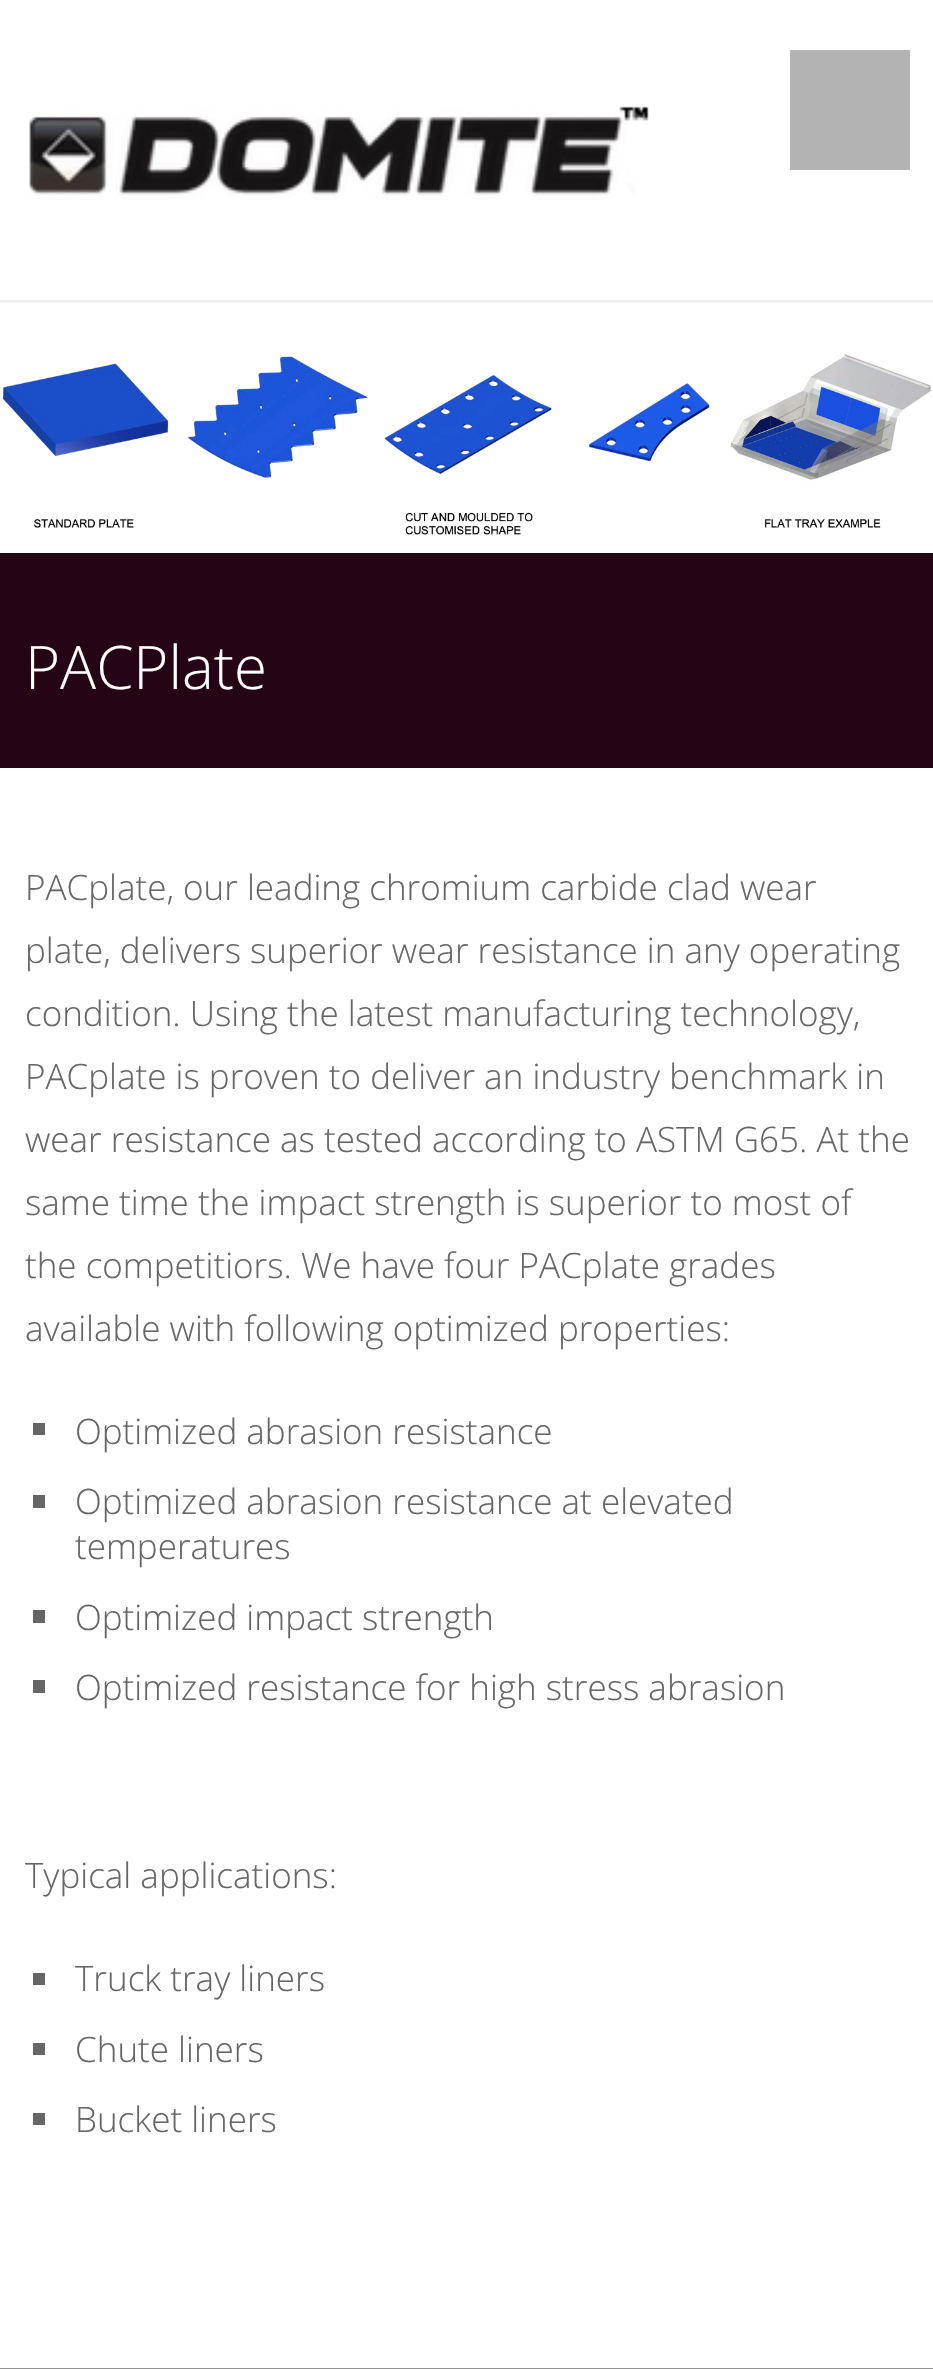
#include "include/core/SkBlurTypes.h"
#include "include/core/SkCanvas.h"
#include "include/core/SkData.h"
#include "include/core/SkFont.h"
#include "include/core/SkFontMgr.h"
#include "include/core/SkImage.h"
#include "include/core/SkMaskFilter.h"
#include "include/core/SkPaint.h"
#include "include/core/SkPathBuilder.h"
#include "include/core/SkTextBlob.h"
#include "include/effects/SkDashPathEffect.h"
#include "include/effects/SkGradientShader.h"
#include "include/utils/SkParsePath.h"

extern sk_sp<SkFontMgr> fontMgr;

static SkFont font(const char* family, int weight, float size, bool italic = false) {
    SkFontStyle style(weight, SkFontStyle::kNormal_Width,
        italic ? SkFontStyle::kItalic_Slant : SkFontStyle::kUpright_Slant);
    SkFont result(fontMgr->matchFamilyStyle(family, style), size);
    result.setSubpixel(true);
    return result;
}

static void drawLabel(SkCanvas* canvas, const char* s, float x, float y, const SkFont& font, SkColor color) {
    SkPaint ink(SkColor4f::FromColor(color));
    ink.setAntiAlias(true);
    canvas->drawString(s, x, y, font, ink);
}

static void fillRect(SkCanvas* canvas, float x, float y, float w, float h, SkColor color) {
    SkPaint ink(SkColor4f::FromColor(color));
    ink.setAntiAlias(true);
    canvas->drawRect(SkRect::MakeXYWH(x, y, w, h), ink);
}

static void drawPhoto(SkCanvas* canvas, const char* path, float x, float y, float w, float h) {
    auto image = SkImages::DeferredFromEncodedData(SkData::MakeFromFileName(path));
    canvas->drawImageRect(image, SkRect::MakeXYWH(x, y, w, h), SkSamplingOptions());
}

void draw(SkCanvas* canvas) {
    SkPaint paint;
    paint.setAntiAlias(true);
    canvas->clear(0xFFFFFFFF);
    fillRect(canvas, 0, 300, 933, 3, 0xFFEEEEEE);
    drawPhoto(canvas, "assets/img1.png", 29, 106, 620, 94);
    fillRect(canvas, 790, 50, 120, 120, 0xFFB3B3B3);
    drawPhoto(canvas, "assets/img2.png", 0, 302, 933, 233);
    fillRect(canvas, 0, 553, 933, 215, 0xFF240415);
    SkFont font1 = font("Open Sans", 300, 60);
    drawLabel(canvas, "PACPlate", 25, 689, font1, 0xFFFFFFFF);
    SkFont font2 = font("Open Sans", 300, 35);
    drawLabel(canvas, "PACplate, our leading chromium carbide clad wear", 25, 900, font2, 0xFF666666);
    drawLabel(canvas, "plate, delivers superior wear resistance in any operating", 25, 963, font2, 0xFF666666);
    drawLabel(canvas, "condition. Using the latest manufacturing technology,", 25, 1026, font2, 0xFF666666);
    drawLabel(canvas, "PACplate is proven to deliver an industry benchmark in", 25, 1089, font2, 0xFF666666);
    drawLabel(canvas, "wear resistance as tested according to ASTM G65. At the", 25, 1152, font2, 0xFF666666);
    drawLabel(canvas, "same time the impact strength is superior to most of", 25, 1215, font2, 0xFF666666);
    drawLabel(canvas, "the competitiors. We have four PACplate grades", 25, 1278, font2, 0xFF666666);
    drawLabel(canvas, "available with following optimized properties:", 25, 1341, font2, 0xFF666666);
    fillRect(canvas, 33, 1423, 12, 12, 0xFF666666);
    drawLabel(canvas, "Optimized abrasion resistance", 75, 1444, font2, 0xFF666666);
    fillRect(canvas, 33, 1495, 12, 13, 0xFF666666);
    drawLabel(canvas, "Optimized abrasion resistance at elevated", 75, 1514, font2, 0xFF666666);
    drawLabel(canvas, "temperatures", 75, 1559, font2, 0xFF666666);
    fillRect(canvas, 33, 1610, 12, 13, 0xFF666666);
    drawLabel(canvas, "Optimized impact strength", 75, 1630, font2, 0xFF666666);
    fillRect(canvas, 33, 1680, 12, 13, 0xFF666666);
    drawLabel(canvas, "Optimized resistance for high stress abrasion", 75, 1700, font2, 0xFF666666);
    drawLabel(canvas, "Typical applications:", 25, 1888, font2, 0xFF666666);
    fillRect(canvas, 33, 1973, 12, 12, 0xFF666666);
    drawLabel(canvas, "Truck tray liners", 75, 1991, font2, 0xFF666666);
    fillRect(canvas, 33, 2043, 12, 12, 0xFF666666);
    drawLabel(canvas, "Chute liners", 75, 2062, font2, 0xFF666666);
    fillRect(canvas, 33, 2113, 12, 12, 0xFF666666);
    drawLabel(canvas, "Bucket liners", 75, 2132, font2, 0xFF666666);
    fillRect(canvas, 0, 2368, 933, 1, 0xFF929292);
}
